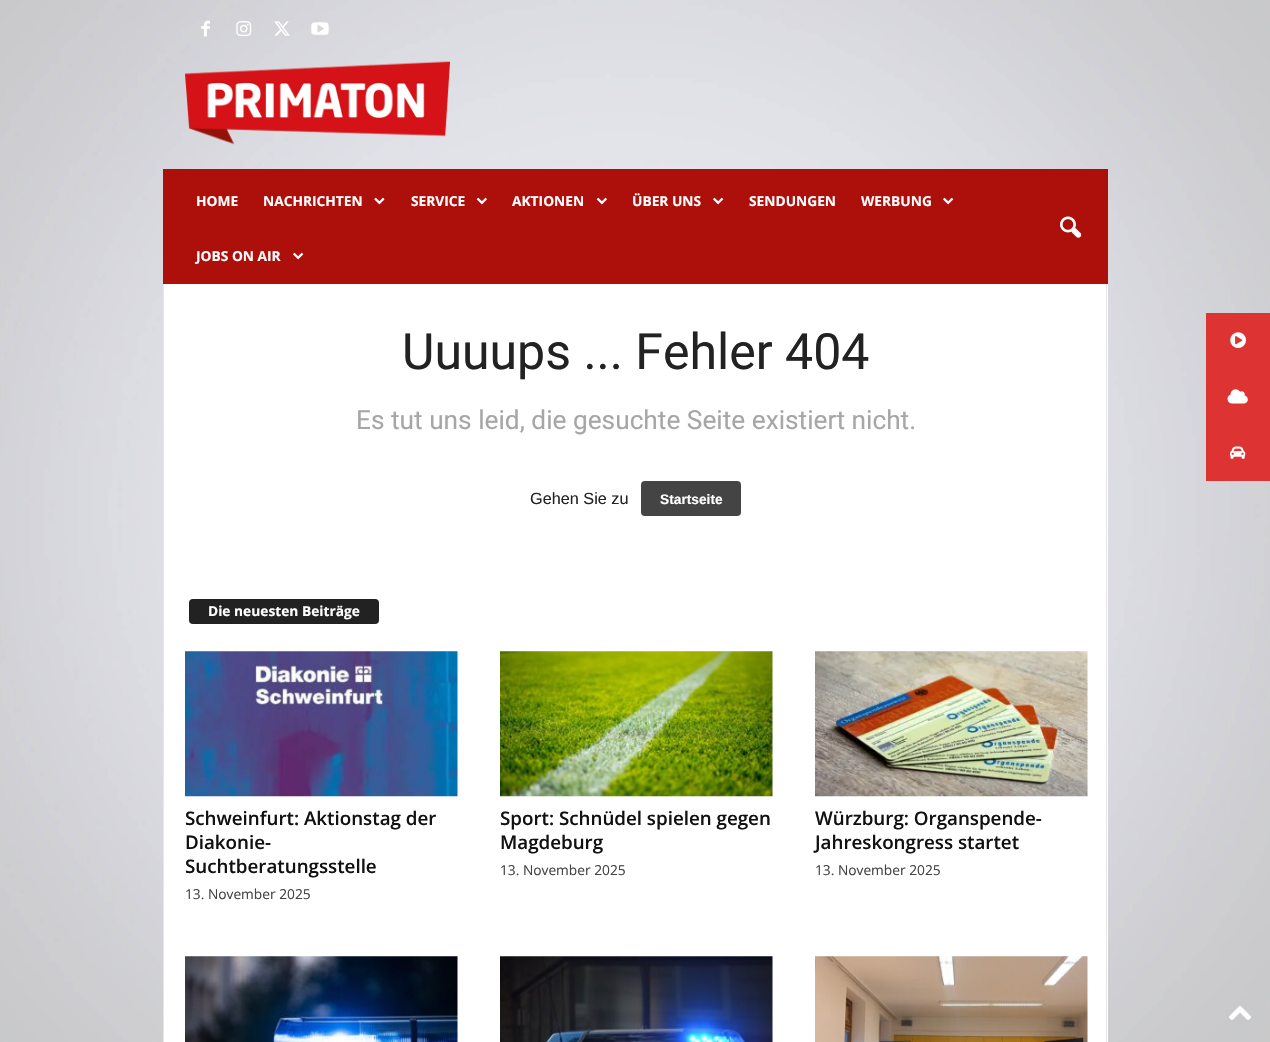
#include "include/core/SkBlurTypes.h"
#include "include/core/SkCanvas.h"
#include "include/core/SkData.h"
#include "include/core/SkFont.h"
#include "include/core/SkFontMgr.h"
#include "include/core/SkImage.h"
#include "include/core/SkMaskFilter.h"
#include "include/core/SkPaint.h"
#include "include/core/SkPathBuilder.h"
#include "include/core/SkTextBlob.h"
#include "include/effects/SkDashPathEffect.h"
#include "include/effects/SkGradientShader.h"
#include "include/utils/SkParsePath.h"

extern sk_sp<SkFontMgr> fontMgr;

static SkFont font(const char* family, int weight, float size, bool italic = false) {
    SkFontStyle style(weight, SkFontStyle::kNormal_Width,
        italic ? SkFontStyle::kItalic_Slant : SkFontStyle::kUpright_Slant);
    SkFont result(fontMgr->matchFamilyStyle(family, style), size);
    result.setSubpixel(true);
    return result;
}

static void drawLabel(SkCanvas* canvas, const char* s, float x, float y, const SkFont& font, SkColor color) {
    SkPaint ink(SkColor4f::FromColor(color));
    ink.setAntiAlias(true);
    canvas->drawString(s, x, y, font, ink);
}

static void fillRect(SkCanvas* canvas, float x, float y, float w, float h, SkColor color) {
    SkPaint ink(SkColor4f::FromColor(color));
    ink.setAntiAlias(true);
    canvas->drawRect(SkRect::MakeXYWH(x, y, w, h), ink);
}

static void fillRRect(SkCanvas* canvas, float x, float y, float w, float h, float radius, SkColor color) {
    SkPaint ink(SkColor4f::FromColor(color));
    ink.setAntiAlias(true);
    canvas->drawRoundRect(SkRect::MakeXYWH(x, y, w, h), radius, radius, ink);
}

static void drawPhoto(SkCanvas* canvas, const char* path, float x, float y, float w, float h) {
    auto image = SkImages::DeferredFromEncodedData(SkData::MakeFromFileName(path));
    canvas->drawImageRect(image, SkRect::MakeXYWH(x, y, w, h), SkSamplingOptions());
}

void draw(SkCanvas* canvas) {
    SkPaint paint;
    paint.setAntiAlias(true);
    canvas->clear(0xFFFFFFFF);
    drawPhoto(canvas, "assets/img1.png", 0, 0, 1270, 1042);
    drawPhoto(canvas, "assets/img2.png", 201, 20, 9, 17);
    drawPhoto(canvas, "assets/img3.png", 236, 21, 16, 15);
    drawPhoto(canvas, "assets/img4.png", 274, 21, 16, 15);
    drawPhoto(canvas, "assets/img5.png", 311, 22, 18, 13);
    drawPhoto(canvas, "assets/img6.png", 185, 61, 265, 84);
    fillRect(canvas, 163, 169, 945, 115, 0xFFAD0F0A);
    SkFont font1 = font("Open Sans", 700, 13.75f);
    drawLabel(canvas, "HOME", 196, 206, font1, 0xFFFFFFFF);
    drawLabel(canvas, "NACHRICHTEN", 263, 206, font1, 0xFFFFFFFF);
    drawPhoto(canvas, "assets/img7.png", 374, 197, 11, 8);
    drawLabel(canvas, "SERVICE", 411, 206, font1, 0xFFFFFFFF);
    drawPhoto(canvas, "assets/img8.png", 476, 197, 11, 8);
    drawLabel(canvas, "AKTIONEN", 512, 206, font1, 0xFFFFFFFF);
    drawPhoto(canvas, "assets/img8.png", 596, 197, 11, 8);
    drawLabel(canvas, "ÜBER UNS", 632, 206, font1, 0xFFFFFFFF);
    drawPhoto(canvas, "assets/img9.png", 713, 197, 11, 8);
    drawLabel(canvas, "SENDUNGEN", 749, 206, font1, 0xFFFFFFFF);
    drawLabel(canvas, "WERBUNG", 861, 206, font1, 0xFFFFFFFF);
    drawPhoto(canvas, "assets/img9.png", 943, 197, 11, 8);
    drawLabel(canvas, "JOBS ON AIR", 196, 261, font1, 0xFFFFFFFF);
    drawPhoto(canvas, "assets/img9.png", 293, 252, 11, 8);
    drawPhoto(canvas, "assets/img10.png", 1060, 216, 22, 22);
    fillRect(canvas, 164, 284, 944, 758, 0xFFFFFFFF);
    fillRect(canvas, 163, 284, 1, 758, 0xFFE6E6E6);
    SkFont font2 = font("Roboto", 400, 50);
    drawLabel(canvas, "Uuuups ... Fehler 404", 402, 369, font2, 0xFF222222);
    SkFont font3 = font("Roboto", 400, 26.25f);
    drawLabel(canvas, "Es tut uns leid, die gesuchte Seite existiert nicht.", 356, 429, font3, 0xFFA6A6A6);
    SkFont font4 = font("Liberation Sans", 400, 16.25f);
    drawLabel(canvas, "Gehen Sie zu", 530, 504, font4, 0xFF222222);
    fillRRect(canvas, 641, 481, 100, 35, 4, 0xFF444444);
    SkFont font5 = font("Liberation Sans", 700, 13.75f);
    drawLabel(canvas, "Startseite", 660, 504, font5, 0xFFFFFFFF);
    fillRRect(canvas, 189, 599, 190, 25, 4, 0xFF222222);
    drawLabel(canvas, "Die neuesten Beiträge", 208, 616, font1, 0xFFFFFFFF);
    drawPhoto(canvas, "assets/img11.png", 185, 651, 273, 146);
    SkFont font6 = font("Open Sans", 600, 18.75f);
    drawLabel(canvas, "Schweinfurt: Aktionstag der", 185, 825, font6, 0xFF111111);
    drawLabel(canvas, "Diakonie-", 185, 849, font6, 0xFF111111);
    drawLabel(canvas, "Suchtberatungsstelle", 185, 873, font6, 0xFF111111);
    SkFont font7 = font("Open Sans", 400, 13.75f);
    drawLabel(canvas, "13. November 2025", 185, 899, font7, 0xFF444444);
    drawPhoto(canvas, "assets/img12.png", 500, 651, 273, 146);
    drawLabel(canvas, "Sport: Schnüdel spielen gegen", 500, 825, font6, 0xFF111111);
    drawLabel(canvas, "Magdeburg", 500, 849, font6, 0xFF111111);
    drawLabel(canvas, "13. November 2025", 500, 875, font7, 0xFF444444);
    drawPhoto(canvas, "assets/img13.png", 815, 651, 273, 146);
    drawLabel(canvas, "Würzburg: Organspende-", 815, 825, font6, 0xFF111111);
    drawLabel(canvas, "Jahreskongress startet", 815, 849, font6, 0xFF111111);
    drawLabel(canvas, "13. November 2025", 815, 875, font7, 0xFF444444);
    drawPhoto(canvas, "assets/img14.png", 185, 956, 273, 86);
    drawPhoto(canvas, "assets/img15.png", 500, 956, 273, 86);
    drawPhoto(canvas, "assets/img16.png", 815, 956, 273, 86);
    fillRect(canvas, 1106, 284, 1, 758, 0xFFE6E6E6);
    fillRect(canvas, 1206, 313, 64, 168, 0xFFDD3333);
    drawPhoto(canvas, "assets/img17.png", 1230, 332, 16, 16);
    drawPhoto(canvas, "assets/img18.png", 1227, 389, 21, 15);
    drawPhoto(canvas, "assets/img19.png", 1230, 446, 16, 13);
    drawPhoto(canvas, "assets/img20.png", 1228, 1005, 24, 15);
}
